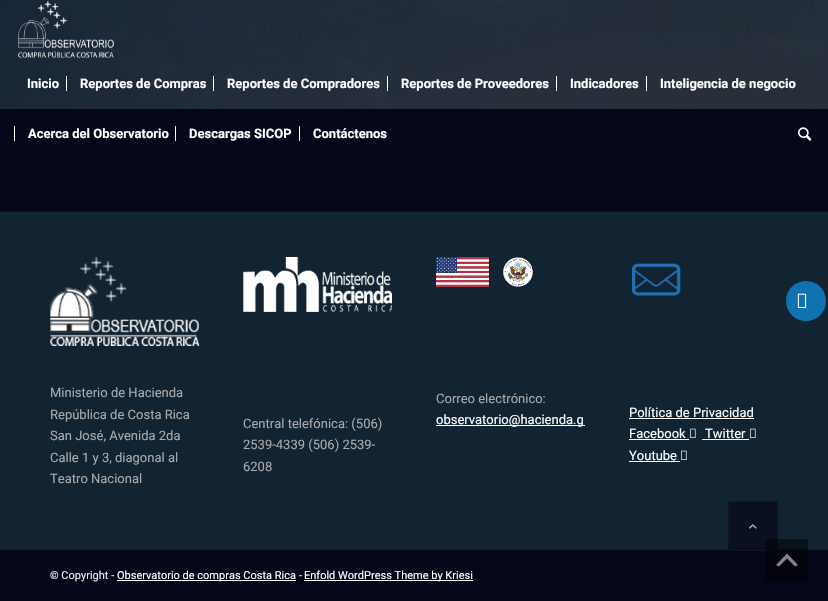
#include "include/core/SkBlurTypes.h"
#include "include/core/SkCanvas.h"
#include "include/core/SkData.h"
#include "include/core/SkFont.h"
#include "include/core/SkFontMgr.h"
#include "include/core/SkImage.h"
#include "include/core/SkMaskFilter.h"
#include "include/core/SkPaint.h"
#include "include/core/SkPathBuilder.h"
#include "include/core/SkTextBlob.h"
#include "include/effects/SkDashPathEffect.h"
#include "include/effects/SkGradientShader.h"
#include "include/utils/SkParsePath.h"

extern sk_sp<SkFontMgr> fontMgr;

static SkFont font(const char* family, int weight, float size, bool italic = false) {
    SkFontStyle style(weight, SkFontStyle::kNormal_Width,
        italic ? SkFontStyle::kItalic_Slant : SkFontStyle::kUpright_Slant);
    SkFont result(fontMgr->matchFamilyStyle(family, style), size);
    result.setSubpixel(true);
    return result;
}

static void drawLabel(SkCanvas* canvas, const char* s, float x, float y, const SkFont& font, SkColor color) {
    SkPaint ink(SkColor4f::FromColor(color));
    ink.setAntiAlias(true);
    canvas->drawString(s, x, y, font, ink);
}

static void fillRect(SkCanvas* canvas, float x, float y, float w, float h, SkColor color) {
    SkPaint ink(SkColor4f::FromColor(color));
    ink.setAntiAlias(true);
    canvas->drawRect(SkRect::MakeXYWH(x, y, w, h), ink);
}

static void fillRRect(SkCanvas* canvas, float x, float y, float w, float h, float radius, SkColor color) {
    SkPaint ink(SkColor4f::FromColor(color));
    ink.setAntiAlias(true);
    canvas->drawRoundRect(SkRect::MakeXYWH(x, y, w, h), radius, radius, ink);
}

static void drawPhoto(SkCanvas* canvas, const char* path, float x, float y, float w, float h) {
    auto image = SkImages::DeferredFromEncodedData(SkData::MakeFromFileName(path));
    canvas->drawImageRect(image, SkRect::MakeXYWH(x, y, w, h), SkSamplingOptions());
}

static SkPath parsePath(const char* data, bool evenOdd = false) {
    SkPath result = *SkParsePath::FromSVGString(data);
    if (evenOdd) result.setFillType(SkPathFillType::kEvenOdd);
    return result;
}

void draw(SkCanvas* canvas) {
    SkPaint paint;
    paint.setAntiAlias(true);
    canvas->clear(0xFF122332);
    drawPhoto(canvas, "assets/img1.png", 0, 0, 828, 109);
    drawPhoto(canvas, "assets/img2.png", 18, 0, 96, 58);
    SkFont font1 = font("Roboto", 700, 13);
    drawLabel(canvas, "Inicio", 27, 88, font1, 0xFFFFFFFF);
    drawLabel(canvas, "Reportes de Compras", 80, 88, font1, 0xFFFFFFFF);
    fillRect(canvas, 66, 76, 1, 15, 0xFFFFFFFF);
    drawLabel(canvas, "Reportes de Compradores", 227, 88, font1, 0xFFFFFFFF);
    fillRect(canvas, 213, 76, 1, 15, 0xFFFFFFFF);
    drawLabel(canvas, "Reportes de Proveedores", 401, 88, font1, 0xFFFFFFFF);
    fillRect(canvas, 387, 76, 1, 15, 0xFFFFFFFF);
    drawLabel(canvas, "Indicadores", 570, 88, font1, 0xFFFFFFFF);
    fillRect(canvas, 556, 76, 1, 15, 0xFFFFFFFF);
    drawLabel(canvas, "Inteligencia de negocio", 660, 88, font1, 0xFFFFFFFF);
    fillRect(canvas, 646, 76, 1, 15, 0xFFFFFFFF);
    fillRect(canvas, 0, 109, 828, 102, 0xFF06061A);
    drawLabel(canvas, "Acerca del Observatorio", 28, 138, font1, 0xFFFFFFFF);
    fillRect(canvas, 14, 126, 1, 15, 0xFFFFFFFF);
    drawLabel(canvas, "Descargas SICOP", 189, 138, font1, 0xFFFFFFFF);
    fillRect(canvas, 175, 126, 1, 15, 0xFFFFFFFF);
    drawLabel(canvas, "Contáctenos", 313, 138, font1, 0xFFFFFFFF);
    fillRect(canvas, 299, 126, 1, 15, 0xFFFFFFFF);
    drawPhoto(canvas, "assets/img3.png", 798, 127, 14, 14);
    fillRect(canvas, 0, 211, 828, 1, 0xFF111111);
    drawPhoto(canvas, "assets/img4.png", 50, 257, 149, 89);
    SkFont font2 = font("Roboto", 400, 13);
    drawLabel(canvas, "Ministerio de Hacienda", 50, 397, font2, 0xFFAAAAAA);
    drawLabel(canvas, "República de Costa Rica", 50, 419, font2, 0xFFAAAAAA);
    drawLabel(canvas, "San José, Avenida 2da", 50, 440, font2, 0xFFAAAAAA);
    drawLabel(canvas, "Calle 1 y 3, diagonal al", 50, 462, font2, 0xFFAAAAAA);
    drawLabel(canvas, "Teatro Nacional", 50, 483, font2, 0xFFAAAAAA);
    drawPhoto(canvas, "assets/img5.png", 243, 257, 149, 55);
    drawLabel(canvas, "Central telefónica: (506)", 243, 428, font2, 0xFFAAAAAA);
    drawLabel(canvas, "2539-4339 (506) 2539-", 243, 449, font2, 0xFFAAAAAA);
    drawLabel(canvas, "6208", 243, 471, font2, 0xFFAAAAAA);
    drawPhoto(canvas, "assets/img6.png", 436, 257, 97, 30);
    drawLabel(canvas, "Correo electrónico:", 436, 403, font2, 0xFFAAAAAA);
    fillRect(canvas, 436, 425, 149, 1, 0xFFFFFFFF);
    drawLabel(canvas, "observatorio@hacienda.g", 436, 424, font2, 0xFFFFFFFF);
    drawPhoto(canvas, "assets/img7.png", 632, 263, 49, 33);
    drawLabel(canvas, "Política de Privacidad", 629, 417, font2, 0xFFFFFFFF);
    fillRect(canvas, 629, 418, 125, 1, 0xFFFFFFFF);
    drawLabel(canvas, "Facebook", 629, 438, font2, 0xFFFFFFFF);
    fillRect(canvas, 629, 439, 60, 1, 0xFFFFFFFF);
    drawPhoto(canvas, "assets/img8.png", 690, 428, 6, 10);
    fillRect(canvas, 702, 439, 47, 1, 0xFFFFFFFF);
    drawLabel(canvas, "Twitter", 705, 438, font2, 0xFFFFFFFF);
    drawPhoto(canvas, "assets/img8.png", 750, 428, 6, 10);
    drawLabel(canvas, "Youtube", 629, 460, font2, 0xFFFFFFFF);
    fillRect(canvas, 629, 461, 51, 1, 0xFFFFFFFF);
    drawPhoto(canvas, "assets/img8.png", 681, 450, 6, 10);
    fillRect(canvas, 0, 550, 828, 51, 0xFF06061A);
    fillRect(canvas, 0, 549, 828, 1, 0xFF191919);
    SkFont font3 = font("Roboto", 400, 11);
    drawLabel(canvas, "© Copyright -", 50, 579, font3, 0xFFEEEEEE);
    fillRect(canvas, 117, 580, 179, 1, 0xFFFFFFFF);
    drawLabel(canvas, "Observatorio de compras Costa Rica", 117, 579, font3, 0xFFFFFFFF);
    drawLabel(canvas, "-", 299, 579, font3, 0xFFEEEEEE);
    fillRect(canvas, 304, 580, 169, 1, 0xFFFFFFFF);
    drawLabel(canvas, "Enfold WordPress Theme by Kriesi", 304, 579, font3, 0xFFFFFFFF);
    paint.setColor(0xFF1172B2);
    canvas->drawCircle(806, 301, 20, paint);
    drawPhoto(canvas, "assets/img9.png", 797, 293, 10, 15);
    fillRRect(canvas, 728, 501, 50, 50, 2, 0xB306061A);
    paint.setStroke(true);
    paint.setStrokeWidth(1);
    paint.setColor(0xB3191919);
    canvas->drawRoundRect(SkRect::MakeXYWH(728.5f, 501.5f, 49, 49), 1.5f, 1.5f, paint);
    drawPhoto(canvas, "assets/img10.png", 749, 524, 8, 5);
    fillRRect(canvas, 766, 539, 42, 42, 2, 0x80000000);
    paint.setStroke(false);
    paint.setColor(0xFF83838D);
    canvas->drawPath(parsePath("M795 566.5L787 558.5L779 566.5L776 565L787 553.5L798 565Z"), paint);
}
